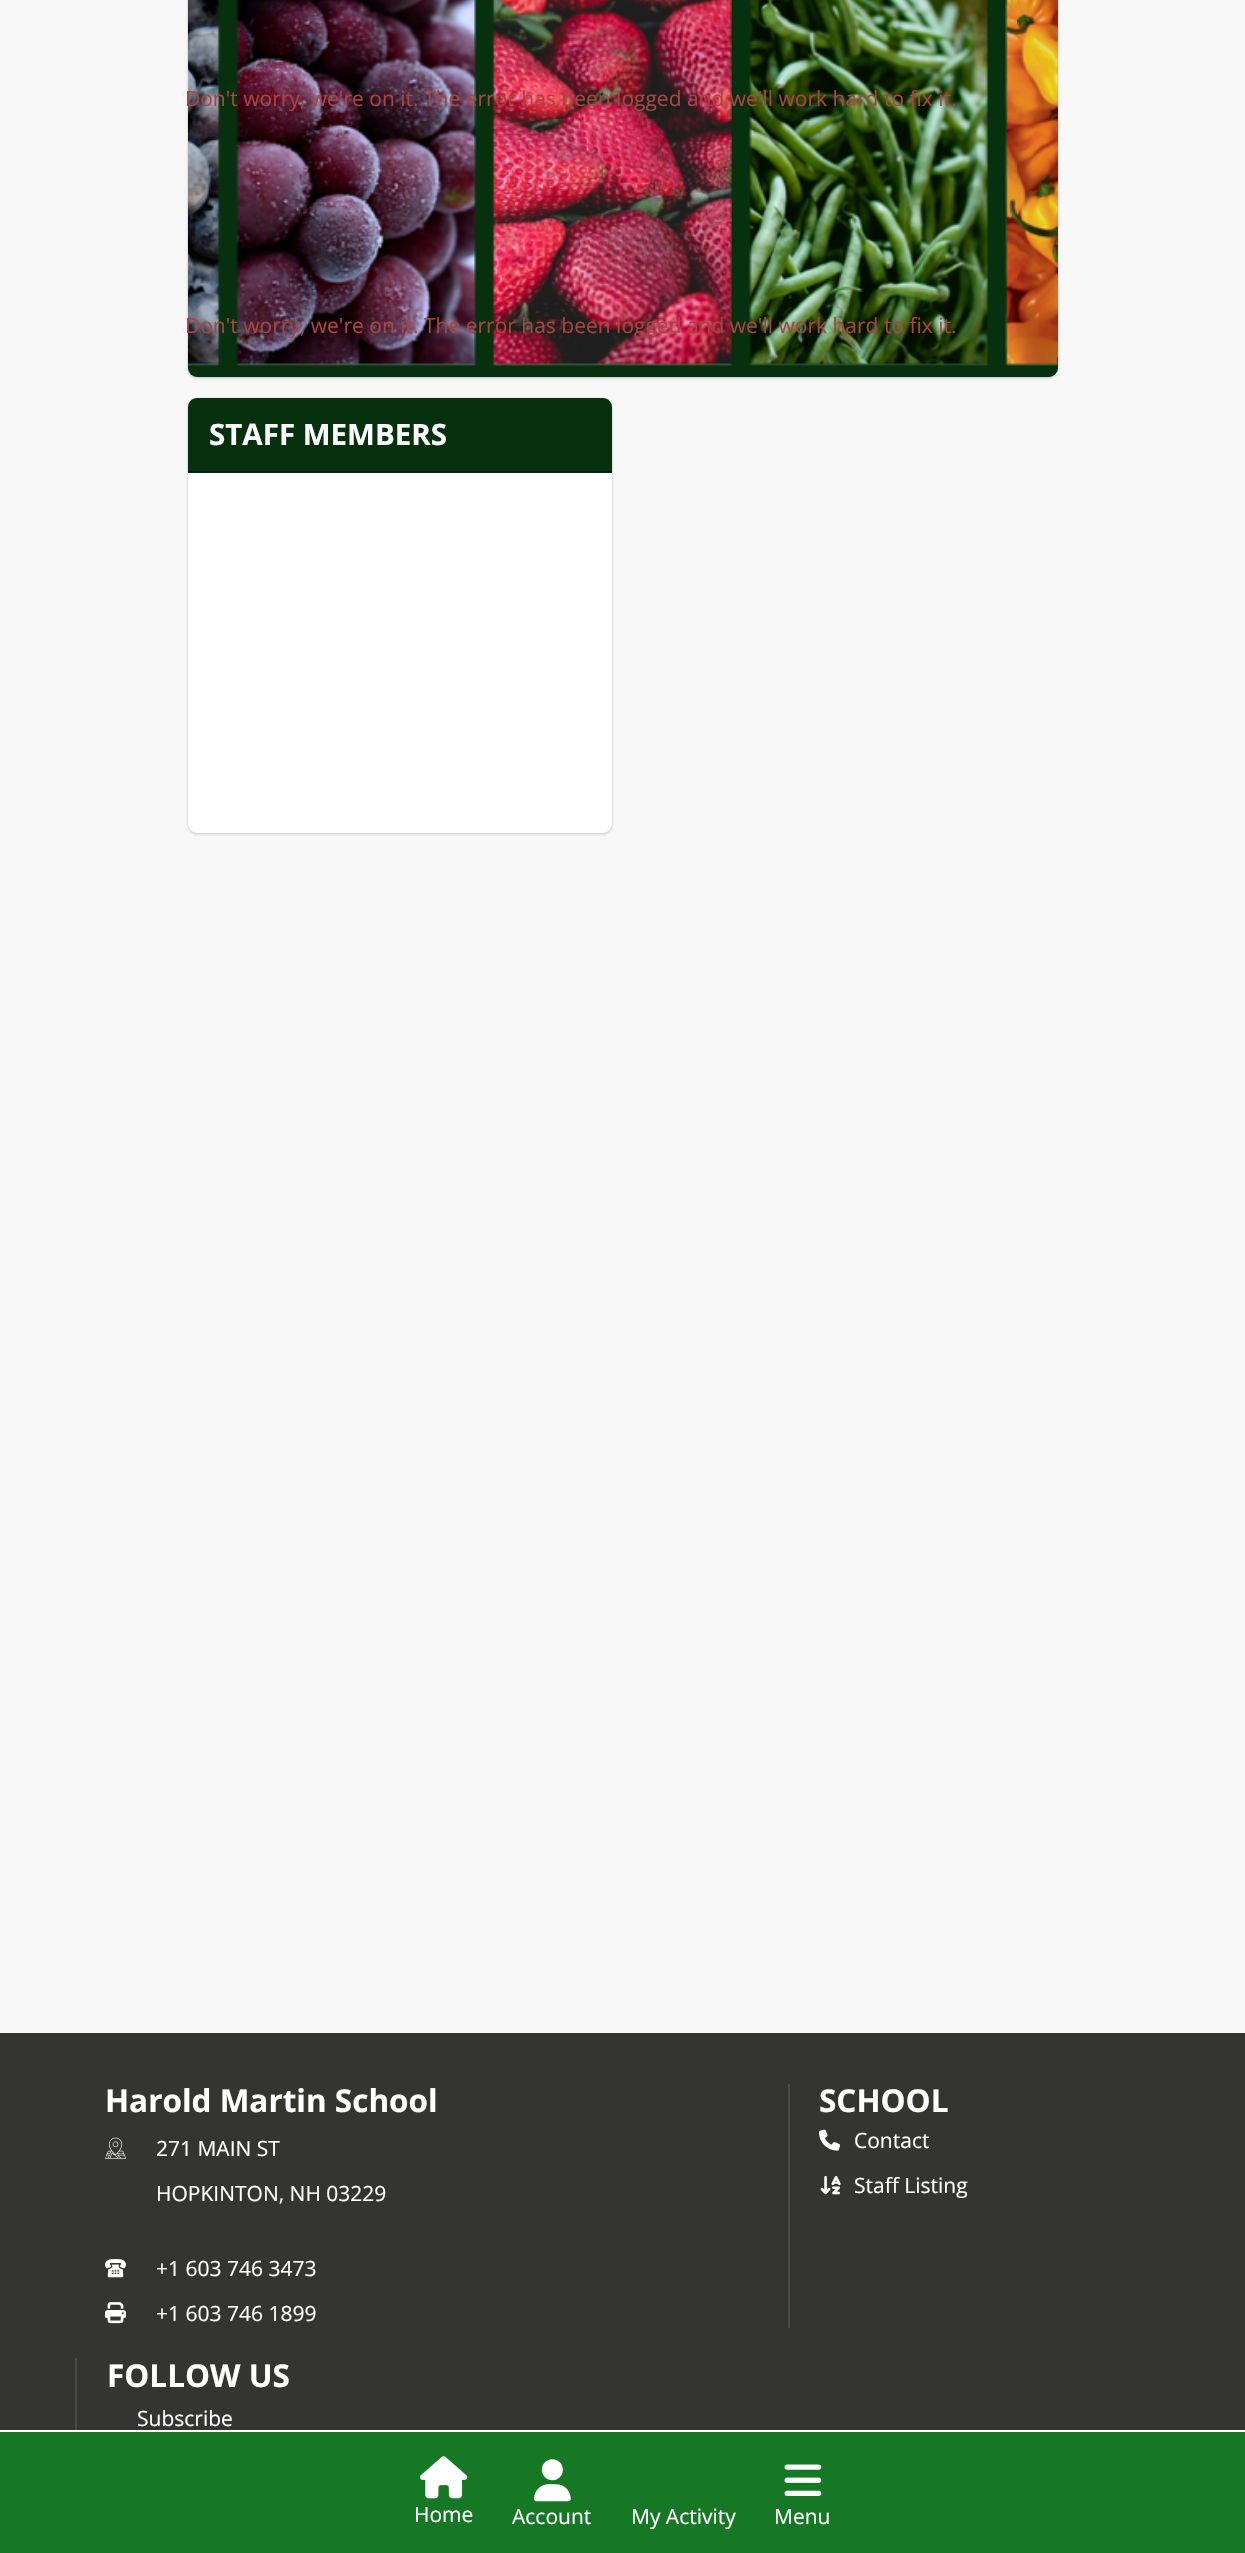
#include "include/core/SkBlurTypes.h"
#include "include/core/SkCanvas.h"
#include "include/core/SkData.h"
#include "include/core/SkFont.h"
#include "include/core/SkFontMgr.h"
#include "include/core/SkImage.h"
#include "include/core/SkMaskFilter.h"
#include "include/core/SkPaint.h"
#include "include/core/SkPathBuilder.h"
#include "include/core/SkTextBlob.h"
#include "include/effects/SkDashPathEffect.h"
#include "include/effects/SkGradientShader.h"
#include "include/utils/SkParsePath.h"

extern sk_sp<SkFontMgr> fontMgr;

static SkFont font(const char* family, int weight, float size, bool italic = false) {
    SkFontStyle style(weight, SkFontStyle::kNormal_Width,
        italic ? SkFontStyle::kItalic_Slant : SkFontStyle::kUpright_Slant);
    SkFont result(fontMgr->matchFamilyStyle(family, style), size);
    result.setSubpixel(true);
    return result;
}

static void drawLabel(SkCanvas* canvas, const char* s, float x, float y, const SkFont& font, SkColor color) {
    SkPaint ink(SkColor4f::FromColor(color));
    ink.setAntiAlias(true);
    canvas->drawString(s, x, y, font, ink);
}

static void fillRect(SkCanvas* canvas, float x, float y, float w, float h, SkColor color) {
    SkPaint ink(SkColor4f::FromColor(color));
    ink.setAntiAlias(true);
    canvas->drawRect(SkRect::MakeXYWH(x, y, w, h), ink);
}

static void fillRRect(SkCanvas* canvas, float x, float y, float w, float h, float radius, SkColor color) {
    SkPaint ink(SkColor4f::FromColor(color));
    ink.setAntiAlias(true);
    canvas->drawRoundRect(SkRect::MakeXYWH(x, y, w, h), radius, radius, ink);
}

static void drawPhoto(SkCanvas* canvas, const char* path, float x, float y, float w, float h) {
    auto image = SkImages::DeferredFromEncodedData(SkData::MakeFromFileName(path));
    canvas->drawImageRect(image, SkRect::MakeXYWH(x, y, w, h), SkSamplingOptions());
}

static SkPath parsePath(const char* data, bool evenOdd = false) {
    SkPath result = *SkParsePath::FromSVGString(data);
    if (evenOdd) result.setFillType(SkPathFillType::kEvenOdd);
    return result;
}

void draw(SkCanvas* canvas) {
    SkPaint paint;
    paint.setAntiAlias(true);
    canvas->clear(0xFFF8F8F8);
    paint.setColor(0x38000000);
    paint.setMaskFilter(SkMaskFilter::MakeBlur(kNormal_SkBlurStyle, 1.5f));
    canvas->drawRoundRect(SkRect::MakeXYWH(188, -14, 870, 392), 9, 9, paint);
    paint.setMaskFilter(nullptr);
    fillRRect(canvas, 188, -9, 870, 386, 9, 0xFF07300E);
    drawPhoto(canvas, "assets/img1.png", 188, 0, 870, 366);
    SkFont font1 = font("Open Sans", 400, 21);
    drawLabel(canvas, "Don't worry, we're on it. The error has been logged and we'll work hard to fix it.", 185, 106, font1, 0xFFA94442);
    drawLabel(canvas, "Don't worry, we're on it. The error has been logged and we'll work hard to fix it.", 185, 333, font1, 0xFFA94442);
    paint.setMaskFilter(SkMaskFilter::MakeBlur(kNormal_SkBlurStyle, 1.5f));
    canvas->drawRoundRect(SkRect::MakeXYWH(188, 399, 424, 435), 9, 9, paint);
    paint.setMaskFilter(nullptr);
    fillRRect(canvas, 188, 398, 424, 435, 9, 0xFFFFFFFF);
    paint.setColor(0xFF07300E);
    canvas->drawPath(parsePath("M197 398H603C608 398 612 402 612 407V473H188V407C188 402 192 398 197 398Z"), paint);
    fillRect(canvas, 188, 471, 424, 2, 0xFF06260B);
    SkFont font2 = font("Open Sans", 700, 29.5f);
    drawLabel(canvas, "STAFF MEMBERS", 209, 445, font2, 0xFFFFFFFF);
    fillRect(canvas, 0, 2033, 1245, 397, 0xFF343430);
    SkFont font3 = font("Open Sans", 700, 31.5f);
    drawLabel(canvas, "Harold Martin School", 105, 2112, font3, 0xFFFFFFFF);
    drawPhoto(canvas, "assets/img2.png", 105, 2137, 21, 22);
    drawLabel(canvas, "271 MAIN ST", 156, 2156, font1, 0xFFFFFFFF);
    drawLabel(canvas, "HOPKINTON, NH 03229", 156, 2201, font1, 0xFFFFFFFF);
    drawPhoto(canvas, "assets/img3.png", 105, 2259, 21, 19);
    drawLabel(canvas, "+1 603 746 3473", 156, 2276, font1, 0xFFFFFFFF);
    drawPhoto(canvas, "assets/img4.png", 105, 2302, 21, 22);
    drawLabel(canvas, "+1 603 746 1899", 156, 2321, font1, 0xFFFFFFFF);
    fillRect(canvas, 788, 2084, 2, 244, 0xFF494A4D);
    drawLabel(canvas, "SCHOOL", 819, 2112, font3, 0xFFFFFFFF);
    drawPhoto(canvas, "assets/img5.png", 819, 2129, 21, 22);
    drawLabel(canvas, "Contact", 854, 2148, font1, 0xFFFFFFFF);
    drawPhoto(canvas, "assets/img6.png", 820, 2175, 21, 20);
    drawLabel(canvas, "Staff Listing", 854, 2193, font1, 0xFFFFFFFF);
    fillRect(canvas, 75, 2358, 2, 72, 0xFF494A4D);
    drawLabel(canvas, "FOLLOW US", 107, 2387, font3, 0xFFFFFFFF);
    drawLabel(canvas, "Subscribe", 137, 2426, font1, 0xFFFFFFFF);
    fillRect(canvas, 0, 2432, 1245, 121, 0xFF167825);
    fillRect(canvas, 0, 2430, 1245, 2, 0xFFFFFFFF);
    drawPhoto(canvas, "assets/img7.png", 420, 2456, 48, 43);
    drawLabel(canvas, "Home", 414, 2522, font1, 0xFFFFFFFF);
    drawPhoto(canvas, "assets/img8.png", 534, 2459, 37, 43);
    drawLabel(canvas, "Account", 512, 2524, font1, 0xFFFFFFFF);
    drawLabel(canvas, "My Activity", 631, 2524, font1, 0xFFFFFFFF);
    drawPhoto(canvas, "assets/img9.png", 784, 2464, 38, 32);
    drawLabel(canvas, "Menu", 774, 2524, font1, 0xFFFFFFFF);
}
